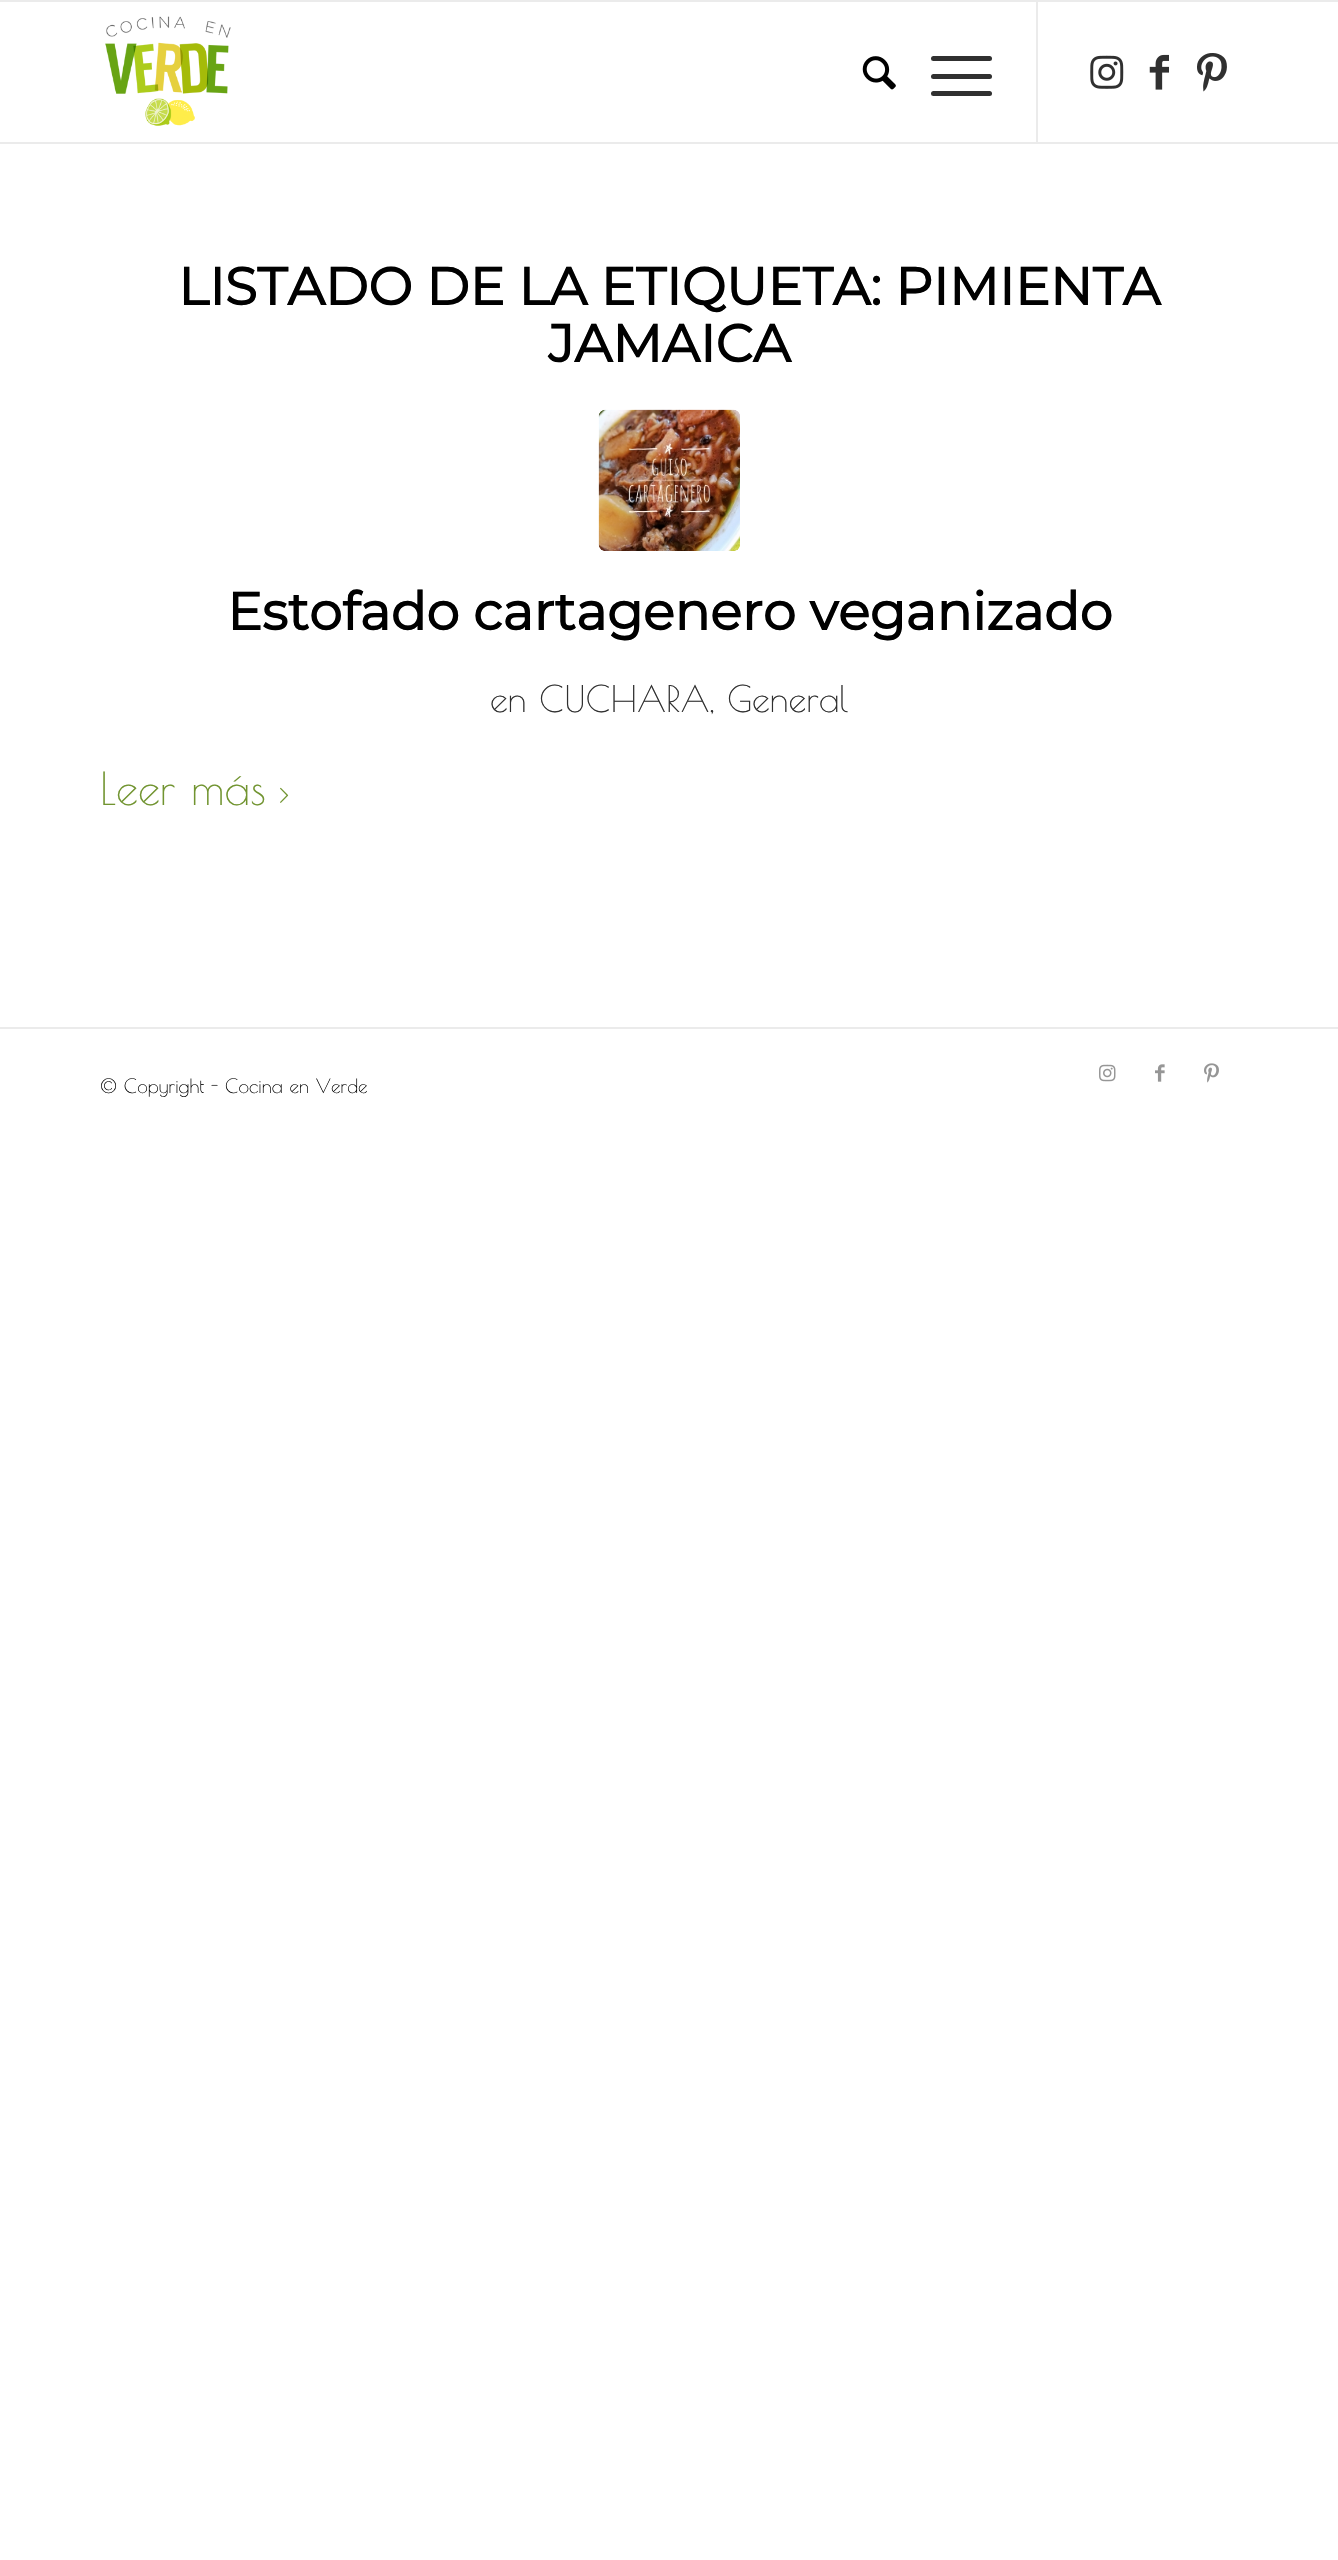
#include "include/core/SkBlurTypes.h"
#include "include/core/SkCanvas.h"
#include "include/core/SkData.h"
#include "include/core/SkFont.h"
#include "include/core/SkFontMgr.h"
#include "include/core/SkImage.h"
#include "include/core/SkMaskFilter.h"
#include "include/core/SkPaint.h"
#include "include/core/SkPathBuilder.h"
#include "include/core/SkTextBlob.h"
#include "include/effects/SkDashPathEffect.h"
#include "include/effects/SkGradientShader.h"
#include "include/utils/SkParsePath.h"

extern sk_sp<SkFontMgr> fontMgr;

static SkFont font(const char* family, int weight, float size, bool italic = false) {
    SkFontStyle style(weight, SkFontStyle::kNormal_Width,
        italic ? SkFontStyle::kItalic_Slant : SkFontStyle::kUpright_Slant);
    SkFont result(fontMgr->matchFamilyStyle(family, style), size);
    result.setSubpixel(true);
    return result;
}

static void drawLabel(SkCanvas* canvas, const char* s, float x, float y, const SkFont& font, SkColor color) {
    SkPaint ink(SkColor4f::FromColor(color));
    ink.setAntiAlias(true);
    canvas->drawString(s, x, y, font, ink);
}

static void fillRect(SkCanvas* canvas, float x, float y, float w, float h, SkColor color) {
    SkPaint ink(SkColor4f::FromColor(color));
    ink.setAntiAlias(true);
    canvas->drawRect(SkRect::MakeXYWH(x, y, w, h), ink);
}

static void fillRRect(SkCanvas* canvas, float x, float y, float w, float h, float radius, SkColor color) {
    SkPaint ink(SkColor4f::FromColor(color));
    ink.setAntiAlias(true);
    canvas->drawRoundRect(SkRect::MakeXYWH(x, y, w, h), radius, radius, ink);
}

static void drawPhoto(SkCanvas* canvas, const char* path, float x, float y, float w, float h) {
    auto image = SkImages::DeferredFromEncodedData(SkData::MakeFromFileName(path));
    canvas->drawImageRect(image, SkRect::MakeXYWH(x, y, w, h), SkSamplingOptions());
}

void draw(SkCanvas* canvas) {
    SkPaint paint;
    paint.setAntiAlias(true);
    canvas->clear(0xFFFFFFFF);
    fillRect(canvas, 0, 0, 1338, 2, 0xFFEBEBEB);
    fillRect(canvas, 0, 142, 1338, 2, 0xFFEBEBEB);
    drawPhoto(canvas, "assets/img1.png", 105, 16, 126, 110);
    fillRect(canvas, 1036, 2, 2, 140, 0xFFEBEBEB);
    drawPhoto(canvas, "assets/img2.png", 862, 56, 34, 34);
    fillRRect(canvas, 931, 74, 61, 5, 2.5f, 0xFF303030);
    fillRRect(canvas, 931, 56, 61, 5, 2.5f, 0xFF303030);
    fillRRect(canvas, 931, 91, 61, 5, 2.5f, 0xFF303030);
    drawPhoto(canvas, "assets/img3.png", 1090, 55, 34, 34);
    drawPhoto(canvas, "assets/img4.png", 1149, 54, 20, 36);
    drawPhoto(canvas, "assets/img5.png", 1197, 53, 30, 39);
    SkFont font1 = font("Montserrat", 700, 52.5f);
    drawLabel(canvas, "LISTADO DE LA ETIQUETA: PIMIENTA", 178, 305, font1, 0xFF000000);
    drawLabel(canvas, "JAMAICA", 548, 362, font1, 0xFF000000);
    drawPhoto(canvas, "assets/img6.png", 598, 409, 142, 142);
    drawLabel(canvas, "Estofado cartagenero veganizado", 227, 630, font1, 0xFF000000);
    SkFont font2 = font("Poiret One", 400, 35.9f);
    drawLabel(canvas, "en CUCHARA, General", 490, 712, font2, 0xFF303030);
    SkFont font3 = font("Poiret One", 400, 44.5f);
    drawLabel(canvas, "Leer más", 100, 805, font3, 0xFF719430);
    drawPhoto(canvas, "assets/img7.png", 280, 787, 9, 16);
    fillRect(canvas, 0, 1027, 1338, 2, 0xFFEBEBEB);
    drawPhoto(canvas, "assets/img8.png", 1099, 1064, 17, 18);
    drawPhoto(canvas, "assets/img9.png", 1155, 1064, 10, 18);
    drawPhoto(canvas, "assets/img10.png", 1204, 1063, 15, 20);
    SkFont font4 = font("Poiret One", 400, 19.25f);
    drawLabel(canvas, "© Copyright - Cocina en Verde", 100, 1093, font4, 0xFF000000);
}
